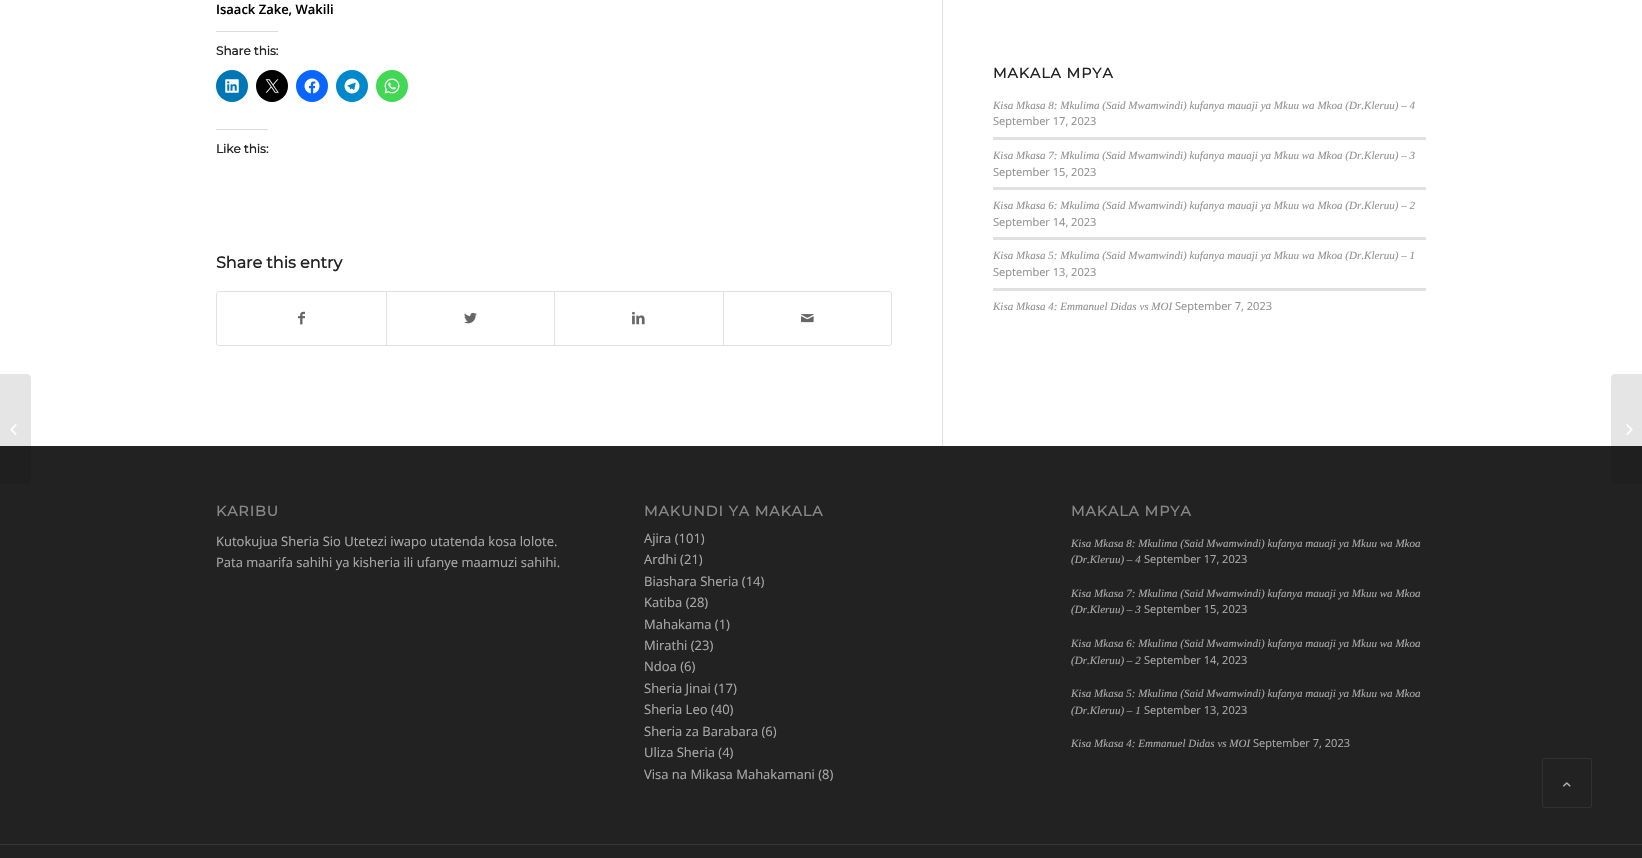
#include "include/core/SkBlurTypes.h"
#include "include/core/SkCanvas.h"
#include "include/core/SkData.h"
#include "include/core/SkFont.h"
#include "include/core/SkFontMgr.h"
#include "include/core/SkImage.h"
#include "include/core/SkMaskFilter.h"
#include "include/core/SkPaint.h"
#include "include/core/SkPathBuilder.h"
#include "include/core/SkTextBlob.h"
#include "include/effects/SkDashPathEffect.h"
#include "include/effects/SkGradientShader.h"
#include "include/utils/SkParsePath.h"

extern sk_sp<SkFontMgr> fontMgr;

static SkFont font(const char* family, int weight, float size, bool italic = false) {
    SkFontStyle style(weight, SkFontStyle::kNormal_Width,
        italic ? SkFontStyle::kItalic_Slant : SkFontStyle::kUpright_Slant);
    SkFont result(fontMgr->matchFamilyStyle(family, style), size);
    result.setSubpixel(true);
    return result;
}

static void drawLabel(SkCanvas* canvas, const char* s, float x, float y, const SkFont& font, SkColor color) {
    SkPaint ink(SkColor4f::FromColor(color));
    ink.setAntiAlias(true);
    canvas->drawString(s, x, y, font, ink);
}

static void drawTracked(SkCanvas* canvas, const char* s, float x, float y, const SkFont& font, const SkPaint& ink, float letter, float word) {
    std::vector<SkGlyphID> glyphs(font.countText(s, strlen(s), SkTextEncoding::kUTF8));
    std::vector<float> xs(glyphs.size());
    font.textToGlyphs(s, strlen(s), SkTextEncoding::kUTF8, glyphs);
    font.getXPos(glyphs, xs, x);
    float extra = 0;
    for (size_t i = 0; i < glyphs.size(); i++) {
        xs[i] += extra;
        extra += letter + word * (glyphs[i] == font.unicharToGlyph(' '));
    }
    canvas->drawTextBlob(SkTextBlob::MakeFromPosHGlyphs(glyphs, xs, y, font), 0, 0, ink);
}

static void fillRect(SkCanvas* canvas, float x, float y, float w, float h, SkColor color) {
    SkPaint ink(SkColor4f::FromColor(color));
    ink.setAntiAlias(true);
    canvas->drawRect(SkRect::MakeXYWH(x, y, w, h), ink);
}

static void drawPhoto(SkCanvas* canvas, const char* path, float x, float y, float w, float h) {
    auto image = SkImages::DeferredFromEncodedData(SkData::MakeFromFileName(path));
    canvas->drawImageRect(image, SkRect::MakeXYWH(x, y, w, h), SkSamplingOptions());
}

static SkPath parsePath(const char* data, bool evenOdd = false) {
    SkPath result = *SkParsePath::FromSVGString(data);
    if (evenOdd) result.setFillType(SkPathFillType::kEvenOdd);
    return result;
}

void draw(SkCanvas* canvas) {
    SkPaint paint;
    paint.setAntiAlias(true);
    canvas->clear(0xFFFFFFFF);
    fillRect(canvas, 0, 446, 1642, 398, 0xFF222222);
    paint.setColor(0x1A000000);
    canvas->drawPath(parsePath("M0 374H27C29 374 31 376 31 378V480C31 482 29 484 27 484H0Z"), paint);
    drawPhoto(canvas, "assets/img1.png", 10, 424, 7, 11);
    fillRect(canvas, 942, 0, 1, 446, 0xFFE1E1E1);
    SkFont font1 = font("Open Sans", 600, 13);
    drawLabel(canvas, "Isaack Zake, Wakili", 216, 14, font1, 0xFF000000);
    fillRect(canvas, 216, 31, 62, 1, 0xFFDCDCDE);
    SkFont font2 = font("Montserrat", 700, 12);
    drawLabel(canvas, "Share this:", 216, 55, font2, 0xFF222222);
    paint.setColor(0xFF0077B5);
    canvas->drawCircle(232, 86, 16, paint);
    drawPhoto(canvas, "assets/img2.png", 225, 79, 14, 14);
    paint.setColor(0xFF000000);
    canvas->drawCircle(272, 86, 16, paint);
    drawPhoto(canvas, "assets/img3.png", 265, 79, 14, 14);
    paint.setColor(0xFF0866FF);
    canvas->drawCircle(312, 86, 16, paint);
    drawPhoto(canvas, "assets/img4.png", 304, 78, 16, 16);
    paint.setColor(0xFF0088CC);
    canvas->drawCircle(352, 86, 16, paint);
    drawPhoto(canvas, "assets/img5.png", 344, 78, 16, 16);
    paint.setColor(0xFF43D854);
    canvas->drawCircle(392, 86, 16, paint);
    drawPhoto(canvas, "assets/img6.png", 384, 78, 16, 16);
    fillRect(canvas, 216, 129, 52, 1, 0xFFDCDCDE);
    drawLabel(canvas, "Like this:", 216, 153, font2, 0xFF222222);
    SkFont font3 = font("Montserrat", 700, 16);
    drawLabel(canvas, "Share this entry", 216, 268, font3, 0xFF222222);
    paint.setStroke(true);
    paint.setStrokeWidth(1);
    paint.setColor(0xFFE1E1E1);
    canvas->drawRoundRect(SkRect::MakeXYWH(216.5f, 291.5f, 675, 54), 2.5f, 2.5f, paint);
    drawPhoto(canvas, "assets/img7.png", 298, 311, 7, 14);
    fillRect(canvas, 386, 292, 1, 53, 0xFFE1E1E1);
    drawPhoto(canvas, "assets/img8.png", 464, 312, 13, 12);
    fillRect(canvas, 554, 292, 1, 53, 0xFFE1E1E1);
    drawPhoto(canvas, "assets/img9.png", 632, 311, 13, 14);
    fillRect(canvas, 723, 292, 1, 53, 0xFFE1E1E1);
    drawPhoto(canvas, "assets/img10.png", 801, 314, 13, 9);
    SkFont font4 = font("Montserrat", 700, 14.25f);
    paint.setStroke(false);
    paint.setColor(0xFF222222);
    drawTracked(canvas, "MAKALA MPYA", 993, 78, font4, paint, 1, 0);
    SkFont font5 = font("Liberation Serif", 400, 11.05f, true);
    drawLabel(canvas, "Kisa Mkasa 8: Mkulima (Said Mwamwindi) kufanya mauaji ya Mkuu wa Mkoa (Dr.Kleruu) – 4", 993, 109, font5, 0xFF919191);
    SkFont font6 = font("Open Sans", 400, 11.05f);
    drawLabel(canvas, "September 17, 2023", 993, 125, font6, 0xFF919191);
    fillRect(canvas, 993, 137, 433, 3, 0xFFE1E1E1);
    drawLabel(canvas, "Kisa Mkasa 7: Mkulima (Said Mwamwindi) kufanya mauaji ya Mkuu wa Mkoa (Dr.Kleruu) – 3", 993, 159, font5, 0xFF919191);
    drawLabel(canvas, "September 15, 2023", 993, 176, font6, 0xFF919191);
    fillRect(canvas, 993, 187, 433, 3, 0xFFE1E1E1);
    drawLabel(canvas, "Kisa Mkasa 6: Mkulima (Said Mwamwindi) kufanya mauaji ya Mkuu wa Mkoa (Dr.Kleruu) – 2", 993, 209, font5, 0xFF919191);
    drawLabel(canvas, "September 14, 2023", 993, 226, font6, 0xFF919191);
    fillRect(canvas, 993, 237, 433, 3, 0xFFE1E1E1);
    drawLabel(canvas, "Kisa Mkasa 5: Mkulima (Said Mwamwindi) kufanya mauaji ya Mkuu wa Mkoa (Dr.Kleruu) – 1", 993, 259, font5, 0xFF919191);
    drawLabel(canvas, "September 13, 2023", 993, 276, font6, 0xFF919191);
    fillRect(canvas, 993, 288, 433, 3, 0xFFE1E1E1);
    drawLabel(canvas, "Kisa Mkasa 4: Emmanuel Didas vs MOI", 993, 310, font5, 0xFF919191);
    drawLabel(canvas, "September 7, 2023", 1175, 310, font6, 0xFF919191);
    paint.setColor(0xFF888888);
    drawTracked(canvas, "KARIBU", 216, 516, font4, paint, 1, 0);
    SkFont font7 = font("Open Sans", 400, 13);
    drawLabel(canvas, "Kutokujua Sheria Sio Utetezi iwapo utatenda kosa lolote.", 216, 546, font7, 0xFFAAAAAA);
    drawLabel(canvas, "Pata maarifa sahihi ya kisheria ili ufanye maamuzi sahihi.", 216, 567, font7, 0xFFAAAAAA);
    drawTracked(canvas, "MAKUNDI YA MAKALA", 644, 516, font4, paint, 1, 0);
    drawLabel(canvas, "Ajira (101)", 644, 543, font7, 0xFFAAAAAA);
    drawLabel(canvas, "Ardhi (21)", 644, 564, font7, 0xFFAAAAAA);
    drawLabel(canvas, "Biashara Sheria (14)", 644, 586, font7, 0xFFAAAAAA);
    drawLabel(canvas, "Katiba (28)", 644, 607, font7, 0xFFAAAAAA);
    drawLabel(canvas, "Mahakama (1)", 644, 629, font7, 0xFFAAAAAA);
    drawLabel(canvas, "Mirathi (23)", 644, 650, font7, 0xFFAAAAAA);
    drawLabel(canvas, "Ndoa (6)", 644, 671, font7, 0xFFAAAAAA);
    drawLabel(canvas, "Sheria Jinai (17)", 644, 693, font7, 0xFFAAAAAA);
    drawLabel(canvas, "Sheria Leo (40)", 644, 714, font7, 0xFFAAAAAA);
    drawLabel(canvas, "Sheria za Barabara (6)", 644, 736, font7, 0xFFAAAAAA);
    drawLabel(canvas, "Uliza Sheria (4)", 644, 757, font7, 0xFFAAAAAA);
    drawLabel(canvas, "Visa na Mikasa Mahakamani (8)", 644, 779, font7, 0xFFAAAAAA);
    drawTracked(canvas, "MAKALA MPYA", 1071, 516, font4, paint, 1, 0);
    drawLabel(canvas, "Kisa Mkasa 8: Mkulima (Said Mwamwindi) kufanya mauaji ya Mkuu wa Mkoa", 1071, 547, font5, 0xFFAAAAAA);
    drawLabel(canvas, "(Dr.Kleruu) – 4", 1071, 563, font5, 0xFFAAAAAA);
    drawLabel(canvas, "September 17, 2023", 1144, 563, font6, 0xFFAAAAAA);
    drawLabel(canvas, "Kisa Mkasa 7: Mkulima (Said Mwamwindi) kufanya mauaji ya Mkuu wa Mkoa", 1071, 597, font5, 0xFFAAAAAA);
    drawLabel(canvas, "(Dr.Kleruu) – 3", 1071, 613, font5, 0xFFAAAAAA);
    drawLabel(canvas, "September 15, 2023", 1144, 613, font6, 0xFFAAAAAA);
    drawLabel(canvas, "Kisa Mkasa 6: Mkulima (Said Mwamwindi) kufanya mauaji ya Mkuu wa Mkoa", 1071, 647, font5, 0xFFAAAAAA);
    drawLabel(canvas, "(Dr.Kleruu) – 2", 1071, 664, font5, 0xFFAAAAAA);
    drawLabel(canvas, "September 14, 2023", 1144, 664, font6, 0xFFAAAAAA);
    drawLabel(canvas, "Kisa Mkasa 5: Mkulima (Said Mwamwindi) kufanya mauaji ya Mkuu wa Mkoa", 1071, 697, font5, 0xFFAAAAAA);
    drawLabel(canvas, "(Dr.Kleruu) – 1", 1071, 714, font5, 0xFFAAAAAA);
    drawLabel(canvas, "September 13, 2023", 1144, 714, font6, 0xFFAAAAAA);
    drawLabel(canvas, "Kisa Mkasa 4: Emmanuel Didas vs MOI", 1071, 747, font5, 0xFFAAAAAA);
    drawLabel(canvas, "September 7, 2023", 1253, 747, font6, 0xFFAAAAAA);
    fillRect(canvas, 0, 845, 1642, 13, 0xFF222222);
    fillRect(canvas, 0, 844, 1642, 1, 0xFF373737);
    paint.setColor(0x1A000000);
    canvas->drawPath(parsePath("M1615 374H1642V484H1615C1613 484 1611 482 1611 480V378C1611 376 1613 374 1615 374Z"), paint);
    drawPhoto(canvas, "assets/img11.png", 1626, 424, 7, 11);
    paint.setStroke(true);
    paint.setColor(0xFF313131);
    canvas->drawRoundRect(SkRect::MakeXYWH(1542.5f, 758.5f, 49, 49), 1.5f, 1.5f, paint);
    drawPhoto(canvas, "assets/img12.png", 1563, 782, 8, 5);
}
